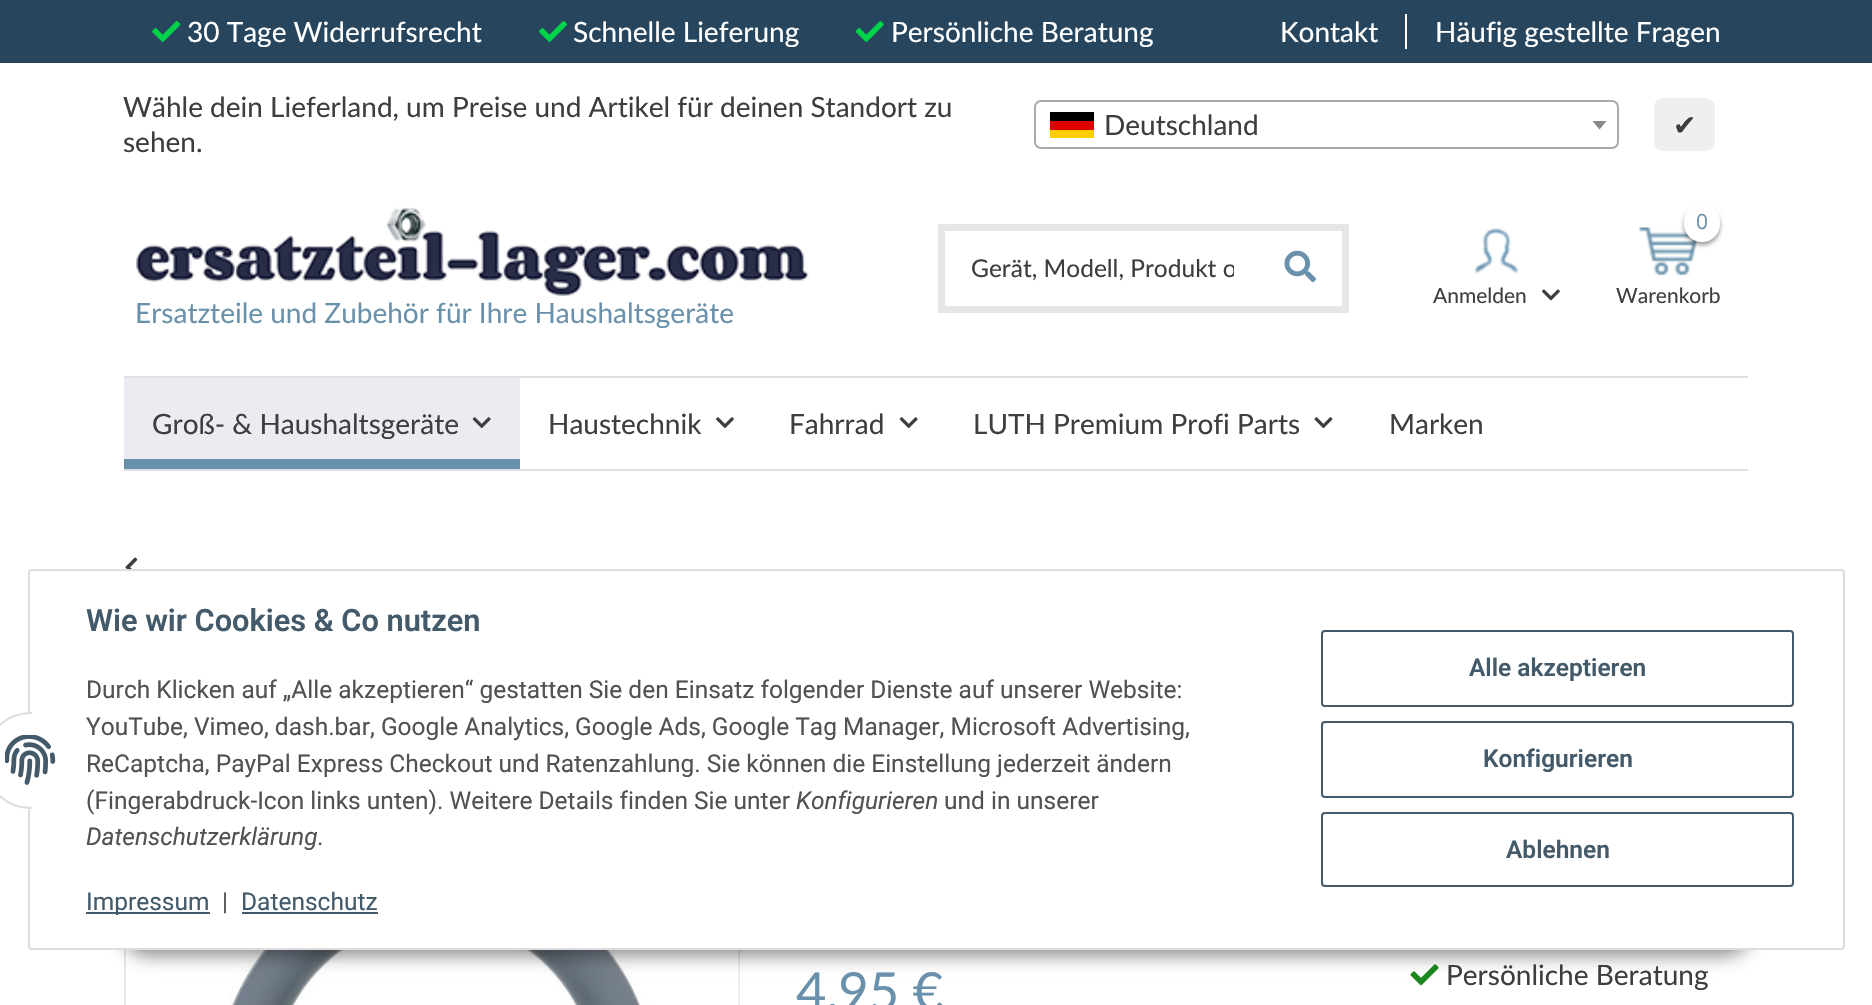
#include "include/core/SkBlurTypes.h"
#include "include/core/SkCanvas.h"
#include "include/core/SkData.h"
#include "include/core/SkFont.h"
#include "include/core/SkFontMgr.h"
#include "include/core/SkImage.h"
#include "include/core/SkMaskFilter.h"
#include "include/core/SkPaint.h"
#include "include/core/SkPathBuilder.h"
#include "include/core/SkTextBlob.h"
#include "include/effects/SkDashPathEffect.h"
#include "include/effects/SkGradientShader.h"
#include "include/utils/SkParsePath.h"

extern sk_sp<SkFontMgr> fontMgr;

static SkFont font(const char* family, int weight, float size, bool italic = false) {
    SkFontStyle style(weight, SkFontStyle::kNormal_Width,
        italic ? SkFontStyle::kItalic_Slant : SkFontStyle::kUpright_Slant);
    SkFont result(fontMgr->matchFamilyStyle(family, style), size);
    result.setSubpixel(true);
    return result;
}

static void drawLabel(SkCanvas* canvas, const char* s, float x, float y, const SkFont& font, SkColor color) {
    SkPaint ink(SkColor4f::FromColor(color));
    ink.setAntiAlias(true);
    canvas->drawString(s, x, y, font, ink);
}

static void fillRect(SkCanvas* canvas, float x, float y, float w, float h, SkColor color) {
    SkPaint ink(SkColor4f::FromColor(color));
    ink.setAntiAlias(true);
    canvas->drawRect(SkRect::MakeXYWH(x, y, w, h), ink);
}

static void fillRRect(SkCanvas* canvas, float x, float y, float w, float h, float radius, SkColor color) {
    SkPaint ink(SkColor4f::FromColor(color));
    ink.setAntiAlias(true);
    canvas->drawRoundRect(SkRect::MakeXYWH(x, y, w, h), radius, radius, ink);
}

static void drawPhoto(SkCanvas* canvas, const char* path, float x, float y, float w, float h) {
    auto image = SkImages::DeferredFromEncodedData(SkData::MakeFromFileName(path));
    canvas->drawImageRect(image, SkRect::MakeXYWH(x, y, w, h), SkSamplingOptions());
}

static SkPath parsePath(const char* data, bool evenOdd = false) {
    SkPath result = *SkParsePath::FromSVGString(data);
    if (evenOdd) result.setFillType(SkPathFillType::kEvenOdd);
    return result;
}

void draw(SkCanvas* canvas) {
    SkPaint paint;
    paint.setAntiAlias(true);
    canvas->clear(0xFFFFFFFF);
    fillRect(canvas, 0, 0, 1872, 63, 0xFF27455C);
    drawPhoto(canvas, "assets/img1.png", 152, 21, 29, 21);
    SkFont font1 = font("Lato", 400, 28);
    drawLabel(canvas, "30 Tage Widerrufsrecht", 187, 42, font1, 0xFFFFFFFF);
    drawPhoto(canvas, "assets/img2.png", 539, 21, 28, 21);
    drawLabel(canvas, "Schnelle Lieferung", 573, 42, font1, 0xFFFFFFFF);
    drawPhoto(canvas, "assets/img3.png", 855, 21, 29, 21);
    drawLabel(canvas, "Persönliche Beratung", 891, 42, font1, 0xFFFFFFFF);
    drawLabel(canvas, "Kontakt", 1280, 42, font1, 0xFFFFFFFF);
    fillRect(canvas, 1405, 14, 2, 35, 0xFFFFFFFF);
    drawLabel(canvas, "Häufig gestellte Fragen", 1435, 42, font1, 0xFFFFFFFF);
    drawLabel(canvas, "Wähle dein Lieferland, um Preise und Artikel für deinen Standort zu", 123, 117, font1, 0xFF3E3E40);
    drawLabel(canvas, "sehen.", 123, 152, font1, 0xFF3E3E40);
    paint.setStroke(true);
    paint.setStrokeWidth(2);
    paint.setColor(0xFFAAAAAA);
    canvas->drawRoundRect(SkRect::MakeXYWH(1035, 101, 583, 47), 6, 6, paint);
    fillRect(canvas, 1050, 112, 44, 9, 0xFF000000);
    fillRect(canvas, 1050, 121, 44, 9, 0xFFDD0000);
    fillRect(canvas, 1050, 130, 44, 8, 0xFFFFCE00);
    drawLabel(canvas, "Deutschland", 1104, 135, font1, 0xFF3E3E40);
    paint.setStroke(false);
    paint.setColor(0xFF888888);
    canvas->drawPath(parsePath("M1592.5 121H1606.5L1599.5 129.5Z"), paint);
    fillRRect(canvas, 1654, 98, 61, 53, 9, 0xFFEFEFEF);
    SkFont font2 = font("DejaVu Sans", 400, 28);
    drawLabel(canvas, "✔", 1673, 135, font2, 0xFF3E3E40);
    paint.setStroke(true);
    paint.setStrokeWidth(7);
    paint.setColor(0xFFE6E6E6);
    canvas->drawRect(SkRect::MakeXYWH(941.5f, 227.5f, 404, 82), paint);
    canvas->save();
    canvas->clipRect(SkRect::MakeXYWH(971, 254, 263, 30));
    SkFont font3 = font("Lato", 400, 24.5f);
    drawLabel(canvas, "Gerät, Modell, Produkt o", 971, 277, font3, 0xFF3E3E40);
    canvas->restore();
    drawPhoto(canvas, "assets/img4.png", 1284, 250, 32, 33);
    drawPhoto(canvas, "assets/img5.png", 1474, 228, 45, 46);
    SkFont font4 = font("Lato", 400, 21);
    drawLabel(canvas, "Anmelden", 1433, 303, font4, 0xFF3E3E40);
    drawPhoto(canvas, "assets/img6.png", 1542, 289, 18, 12);
    drawPhoto(canvas, "assets/img7.png", 1639, 227, 59, 49);
    paint.setStroke(false);
    paint.setColor(0x66000000);
    paint.setMaskFilter(SkMaskFilter::MakeBlur(kNormal_SkBlurStyle, 2));
    canvas->drawRoundRect(SkRect::MakeXYWH(1684, 207, 36, 38), 18, 18, paint);
    paint.setMaskFilter(nullptr);
    fillRRect(canvas, 1684, 203, 36, 39, 18, 0xFFFFFFFF);
    SkFont font5 = font("Open Sans", 400, 21);
    drawLabel(canvas, "0", 1696, 229, font5, 0xFF6991AC);
    drawLabel(canvas, "Warenkorb", 1616, 303, font4, 0xFF3E3E40);
    drawPhoto(canvas, "assets/img8.png", 136, 207, 673, 89);
    drawLabel(canvas, "Ersatzteile und Zubehör für Ihre Haushaltsgeräte", 135, 323, font1, 0xFF6991AC);
    fillRect(canvas, 124, 376, 1624, 2, 0xFFDFE0E6);
    fillRect(canvas, 124, 469, 1624, 2, 0xFFDFE0E6);
    fillRect(canvas, 124, 378, 396, 81, 0xFFEBECF2);
    drawLabel(canvas, "Groß- & Haushaltsgeräte", 152, 434, font1, 0xFF3E3E40);
    drawPhoto(canvas, "assets/img9.png", 472, 417, 19, 12);
    fillRect(canvas, 124, 459, 396, 10, 0xFF6991AC);
    drawLabel(canvas, "Haustechnik", 548, 434, font1, 0xFF3E3E40);
    drawPhoto(canvas, "assets/img10.png", 716, 417, 18, 11);
    drawLabel(canvas, "Fahrrad", 789, 434, font1, 0xFF3E3E40);
    drawPhoto(canvas, "assets/img11.png", 899, 417, 19, 12);
    drawLabel(canvas, "LUTH Premium Profi Parts", 973, 434, font1, 0xFF3E3E40);
    drawPhoto(canvas, "assets/img12.png", 1314, 417, 19, 12);
    drawLabel(canvas, "Marken", 1389, 434, font1, 0xFF3E3E40);
    paint.setStroke(true);
    paint.setStrokeWidth(2);
    paint.setColor(0xFFE7E7E7);
    canvas->drawRect(SkRect::MakeXYWH(125, 722, 614, 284), paint);
    drawPhoto(canvas, "assets/img15.png", 230, 950, 509, 55);
    drawPhoto(canvas, "assets/img16.png", 1410, 964, 29, 22);
    paint.setStroke(false);
    paint.setColor(0x73000000);
    paint.setMaskFilter(SkMaskFilter::MakeBlur(kNormal_SkBlurStyle, 9));
    canvas->drawRoundRect(SkRect::MakeXYWH(121, 900, 1631, 56), 28, 28, paint);
    paint.setMaskFilter(nullptr);
    paint.setColor(0xFFFFFFFF);
    canvas->drawRoundRect(SkRect::MakeXYWH(29, 570, 1815, 379), 3, 3, paint);
    paint.setStroke(true);
    paint.setColor(0xFFDDDDDD);
    canvas->drawRoundRect(SkRect::MakeXYWH(29, 570, 1815, 379), 3, 3, paint);
    paint.setStroke(false);
    paint.setColor(0xFFFFFFFF);
    canvas->drawRoundRect(SkRect::MakeXYWH(-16, 713, 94, 95), 47, 47, paint);
    paint.setStroke(true);
    paint.setColor(0xFFDDDDDD);
    canvas->drawRoundRect(SkRect::MakeXYWH(-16, 713, 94, 95), 47, 47, paint);
    fillRect(canvas, 32, 712, 47, 97, 0xFFFFFFFF);
    drawPhoto(canvas, "assets/img13.png", 5, 735, 51, 50);
    SkFont font6 = font("Roboto", 600, 30.75f);
    drawLabel(canvas, "Wie wir Cookies & Co nutzen", 86, 631, font6, 0xFF435A6B);
    SkFont font7 = font("Roboto", 400, 24.5f);
    drawLabel(canvas, "Durch Klicken auf „Alle akzeptieren“ gestatten Sie den Einsatz folgender Dienste auf unserer Website:", 86, 698, font7, 0xFF525252);
    drawLabel(canvas, "YouTube, Vimeo, dash.bar, Google Analytics, Google Ads, Google Tag Manager, Microsoft Advertising,", 86, 735, font7, 0xFF525252);
    drawLabel(canvas, "ReCaptcha, PayPal Express Checkout und Ratenzahlung. Sie können die Einstellung jederzeit ändern", 86, 772, font7, 0xFF525252);
    drawLabel(canvas, "(Fingerabdruck-Icon links unten). Weitere Details finden Sie unter", 86, 809, font7, 0xFF525252);
    SkFont font8 = font("Roboto", 400, 24.5f, true);
    drawLabel(canvas, "Konfigurieren", 796, 809, font8, 0xFF525252);
    drawLabel(canvas, "und in unserer", 944, 809, font7, 0xFF525252);
    drawLabel(canvas, "Datenschutzerklärung", 86, 845, font8, 0xFF525252);
    drawLabel(canvas, ".", 317, 845, font7, 0xFF525252);
    fillRect(canvas, 86, 912, 124, 2, 0xFF435A6B);
    drawLabel(canvas, "Impressum", 86, 910, font7, 0xFF435A6B);
    drawLabel(canvas, "|", 222, 910, font7, 0xFF525252);
    drawLabel(canvas, "Datenschutz", 241, 910, font7, 0xFF435A6B);
    fillRect(canvas, 242, 912, 136, 2, 0xFF435A6B);
    paint.setColor(0xFF435A6B);
    canvas->drawRoundRect(SkRect::MakeXYWH(1322, 631, 471, 75), 3, 3, paint);
    SkFont font9 = font("Roboto", 600, 24.5f);
    drawLabel(canvas, "Alle akzeptieren", 1469, 676, font9, 0xFF435A6B);
    canvas->drawRoundRect(SkRect::MakeXYWH(1322, 722, 471, 75), 3, 3, paint);
    drawLabel(canvas, "Konfigurieren", 1483, 767, font9, 0xFF435A6B);
    canvas->drawRoundRect(SkRect::MakeXYWH(1322, 813, 471, 73), 3, 3, paint);
    drawLabel(canvas, "Ablehnen", 1506, 858, font9, 0xFF435A6B);
    drawPhoto(canvas, "assets/img14.png", 125, 557, 13, 12);
    SkFont font10 = font("Lato", 400, 52.5f);
    drawLabel(canvas, "4,95 €", 796, 1010, font10, 0xFF6991AC);
    drawLabel(canvas, "Persönliche Beratung", 1446, 985, font1, 0xFF3E3E40);
}
